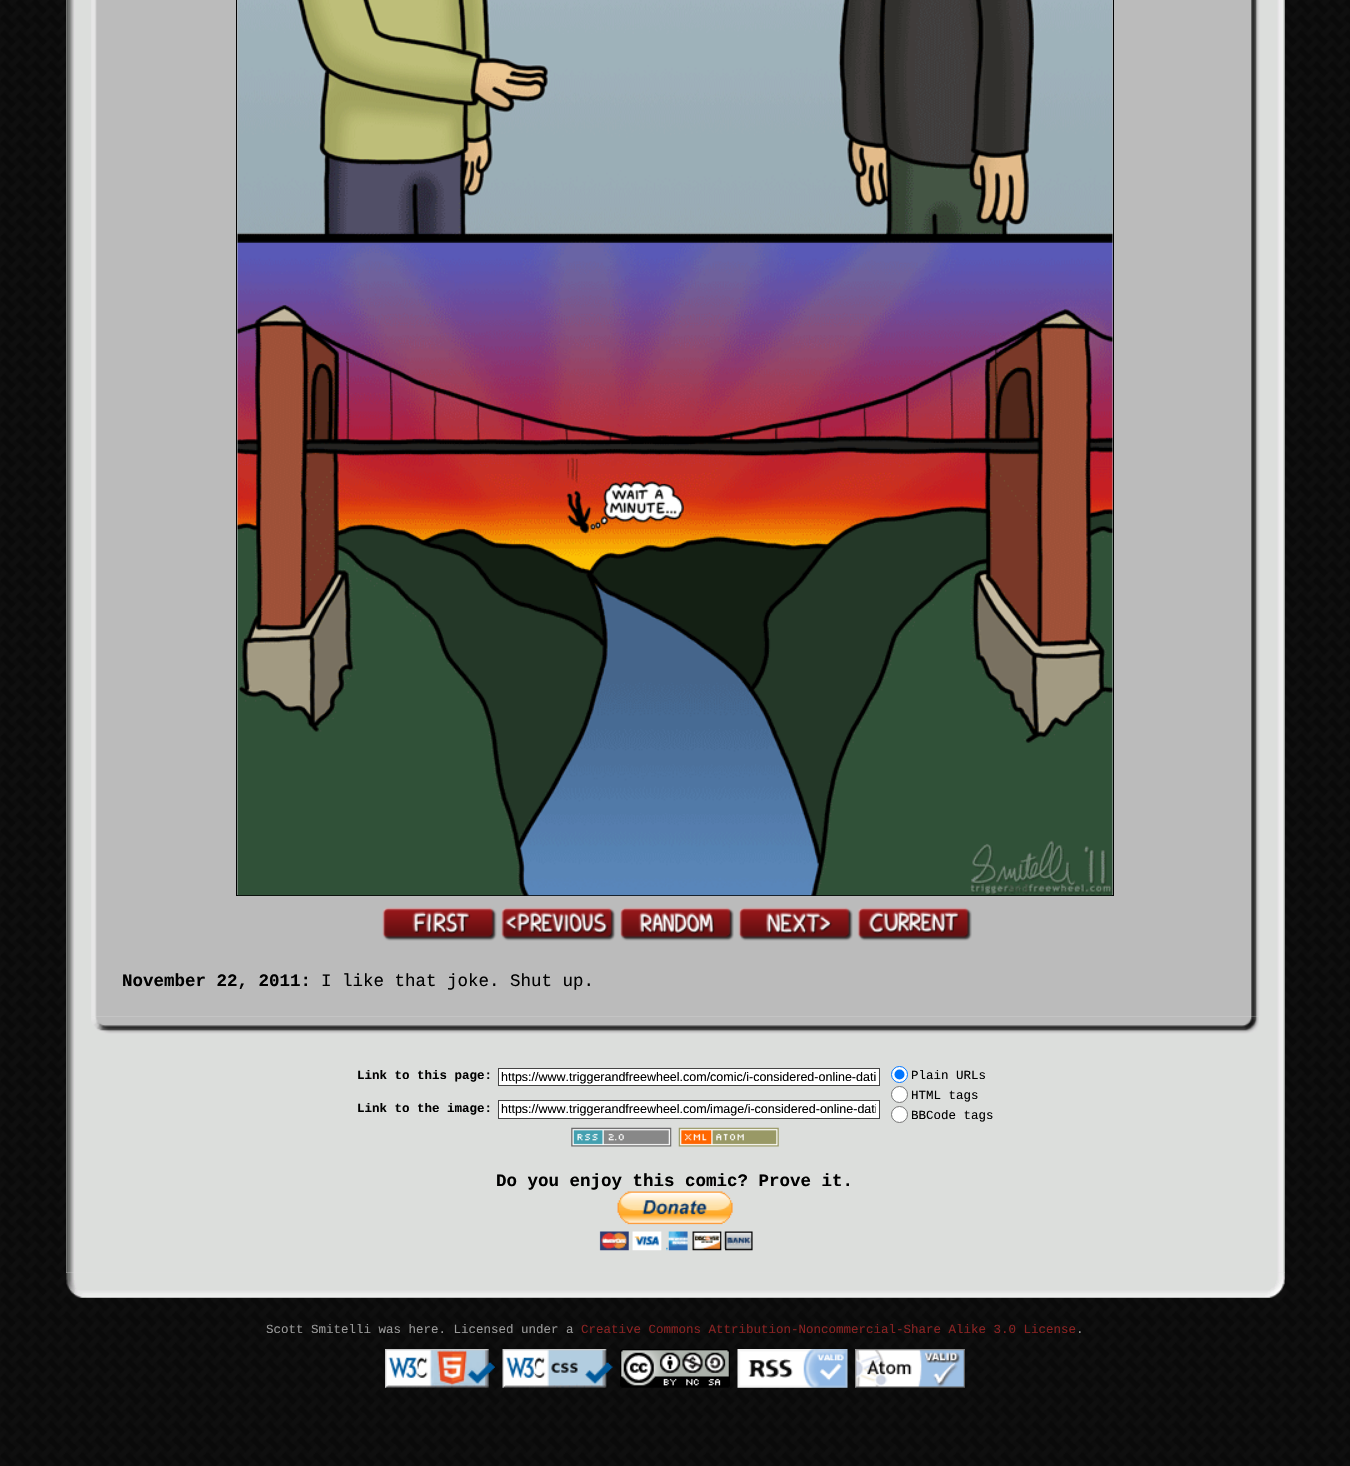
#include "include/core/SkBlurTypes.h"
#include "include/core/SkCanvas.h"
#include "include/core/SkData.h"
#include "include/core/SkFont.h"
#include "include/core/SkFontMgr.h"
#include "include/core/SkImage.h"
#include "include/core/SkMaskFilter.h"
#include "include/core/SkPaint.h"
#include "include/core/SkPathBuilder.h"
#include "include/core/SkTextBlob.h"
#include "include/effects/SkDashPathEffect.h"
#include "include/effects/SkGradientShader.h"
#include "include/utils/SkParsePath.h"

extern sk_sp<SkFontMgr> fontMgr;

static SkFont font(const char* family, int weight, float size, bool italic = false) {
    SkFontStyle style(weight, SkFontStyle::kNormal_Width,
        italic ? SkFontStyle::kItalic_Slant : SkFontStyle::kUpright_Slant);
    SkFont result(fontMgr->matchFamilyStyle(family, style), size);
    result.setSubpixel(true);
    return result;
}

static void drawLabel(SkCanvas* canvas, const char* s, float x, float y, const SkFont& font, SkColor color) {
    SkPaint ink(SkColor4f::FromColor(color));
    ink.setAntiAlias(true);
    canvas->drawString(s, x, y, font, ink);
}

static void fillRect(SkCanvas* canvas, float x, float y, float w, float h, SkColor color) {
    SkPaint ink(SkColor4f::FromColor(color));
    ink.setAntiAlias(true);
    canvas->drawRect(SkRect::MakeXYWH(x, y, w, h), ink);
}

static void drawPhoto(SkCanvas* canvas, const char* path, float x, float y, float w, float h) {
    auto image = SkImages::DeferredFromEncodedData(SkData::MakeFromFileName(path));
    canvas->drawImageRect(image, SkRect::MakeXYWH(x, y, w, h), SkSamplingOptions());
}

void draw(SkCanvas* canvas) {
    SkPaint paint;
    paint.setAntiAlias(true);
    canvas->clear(0xFFFFFFFF);
    drawPhoto(canvas, "assets/img1.png", 0, 0, 1350, 1466);
    fillRect(canvas, 66, 0, 1219, 1273, 0xFFDDDDDD);
    drawPhoto(canvas, "assets/img2.png", 66, 0, 1219, 1273);
    drawPhoto(canvas, "assets/img3.png", 91, 0, 1169, 1017);
    paint.setStroke(true);
    paint.setStrokeWidth(1);
    paint.setColor(0xFF000000);
    canvas->drawRect(SkRect::MakeXYWH(236.5f, -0.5f, 877, 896), paint);
    drawPhoto(canvas, "assets/img4.png", 237, 0, 876, 896);
    drawPhoto(canvas, "assets/img5.png", 382, 907, 115, 34);
    drawPhoto(canvas, "assets/img6.png", 501, 907, 115, 34);
    drawPhoto(canvas, "assets/img7.png", 620, 907, 114, 34);
    drawPhoto(canvas, "assets/img8.png", 738, 907, 115, 34);
    drawPhoto(canvas, "assets/img9.png", 857, 907, 115, 34);
    SkFont font1 = font("Liberation Mono", 700, 17.5f);
    drawLabel(canvas, "November 22, 2011:", 122, 986, font1, 0xFF000000);
    SkFont font2 = font("Liberation Mono", 400, 17.5f);
    drawLabel(canvas, "I like that joke. Shut up.", 321, 986, font2, 0xFF000000);
    drawPhoto(canvas, "assets/img10.png", 91, 1016, 1168, 18);
    SkFont font3 = font("Liberation Mono", 700, 12.5f);
    drawLabel(canvas, "Link to this page:", 357, 1079, font3, 0xFF000000);
    paint.setStroke(false);
    paint.setColor(0xFFFFFFFF);
    canvas->drawRect(SkRect::MakeXYWH(498.5f, 1068.5f, 381, 17), paint);
    paint.setStroke(true);
    paint.setColor(0xFF444444);
    canvas->drawRect(SkRect::MakeXYWH(498.5f, 1068.5f, 381, 17), paint);
    SkFont font4 = font("Liberation Sans", 400, 12.5f);
    drawLabel(canvas, "https://www.triggerandfreewheel.com/comic/i-considered-online-dati", 501, 1081, font4, 0xFF000000);
    paint.setStroke(false);
    paint.setColor(0xFFFFFFFF);
    canvas->drawCircle(899.5f, 1074.5f, 8, paint);
    paint.setStroke(true);
    paint.setColor(0xFF0075FF);
    canvas->drawCircle(899.5f, 1074.5f, 8, paint);
    paint.setStroke(false);
    canvas->drawCircle(899.5f, 1074.5f, 5, paint);
    SkFont font5 = font("Liberation Mono", 400, 12.5f);
    drawLabel(canvas, "Plain URLs", 911, 1079, font5, 0xFF000000);
    paint.setColor(0xFFFFFFFF);
    canvas->drawCircle(899.5f, 1094.5f, 8, paint);
    paint.setStroke(true);
    paint.setColor(0xFF767676);
    canvas->drawCircle(899.5f, 1094.5f, 8, paint);
    drawLabel(canvas, "HTML tags", 911, 1099, font5, 0xFF000000);
    paint.setStroke(false);
    paint.setColor(0xFFFFFFFF);
    canvas->drawCircle(899.5f, 1114.5f, 8, paint);
    paint.setStroke(true);
    paint.setColor(0xFF767676);
    canvas->drawCircle(899.5f, 1114.5f, 8, paint);
    drawLabel(canvas, "BBCode tags", 911, 1119, font5, 0xFF000000);
    drawLabel(canvas, "Link to the image:", 357, 1112, font3, 0xFF000000);
    paint.setStroke(false);
    paint.setColor(0xFFFFFFFF);
    canvas->drawRect(SkRect::MakeXYWH(498.5f, 1100.5f, 381, 18), paint);
    paint.setStroke(true);
    paint.setColor(0xFF444444);
    canvas->drawRect(SkRect::MakeXYWH(498.5f, 1100.5f, 381, 18), paint);
    canvas->save();
    canvas->clipRect(SkRect::MakeXYWH(501, 1103, 375, 13));
    drawLabel(canvas, "https://www.triggerandfreewheel.com/image/i-considered-online-dati", 501, 1113, font4, 0xFF000000);
    canvas->restore();
    drawPhoto(canvas, "assets/img11.png", 571, 1127, 101, 20);
    drawPhoto(canvas, "assets/img12.png", 678, 1127, 101, 20);
    drawLabel(canvas, "Do you enjoy this comic? Prove it.", 496, 1186, font1, 0xFF000000);
    drawPhoto(canvas, "assets/img13.png", 599, 1191, 154, 60);
    drawPhoto(canvas, "assets/img14.png", 66, 1273, 1219, 25);
    drawLabel(canvas, "Scott Smitelli was here. Licensed under a", 266, 1333, font5, 0xFF999999);
    drawLabel(canvas, "Creative Commons Attribution-Noncommercial-Share Alike 3.0 License", 581, 1333, font5, 0xFF882222);
    drawLabel(canvas, ".", 1076, 1333, font5, 0xFF999999);
    drawPhoto(canvas, "assets/img15.png", 385, 1349, 110, 39);
    drawPhoto(canvas, "assets/img16.png", 502, 1349, 111, 39);
    drawPhoto(canvas, "assets/img17.png", 620, 1349, 110, 39);
    drawPhoto(canvas, "assets/img18.png", 737, 1349, 111, 39);
    drawPhoto(canvas, "assets/img19.png", 855, 1349, 110, 39);
}
